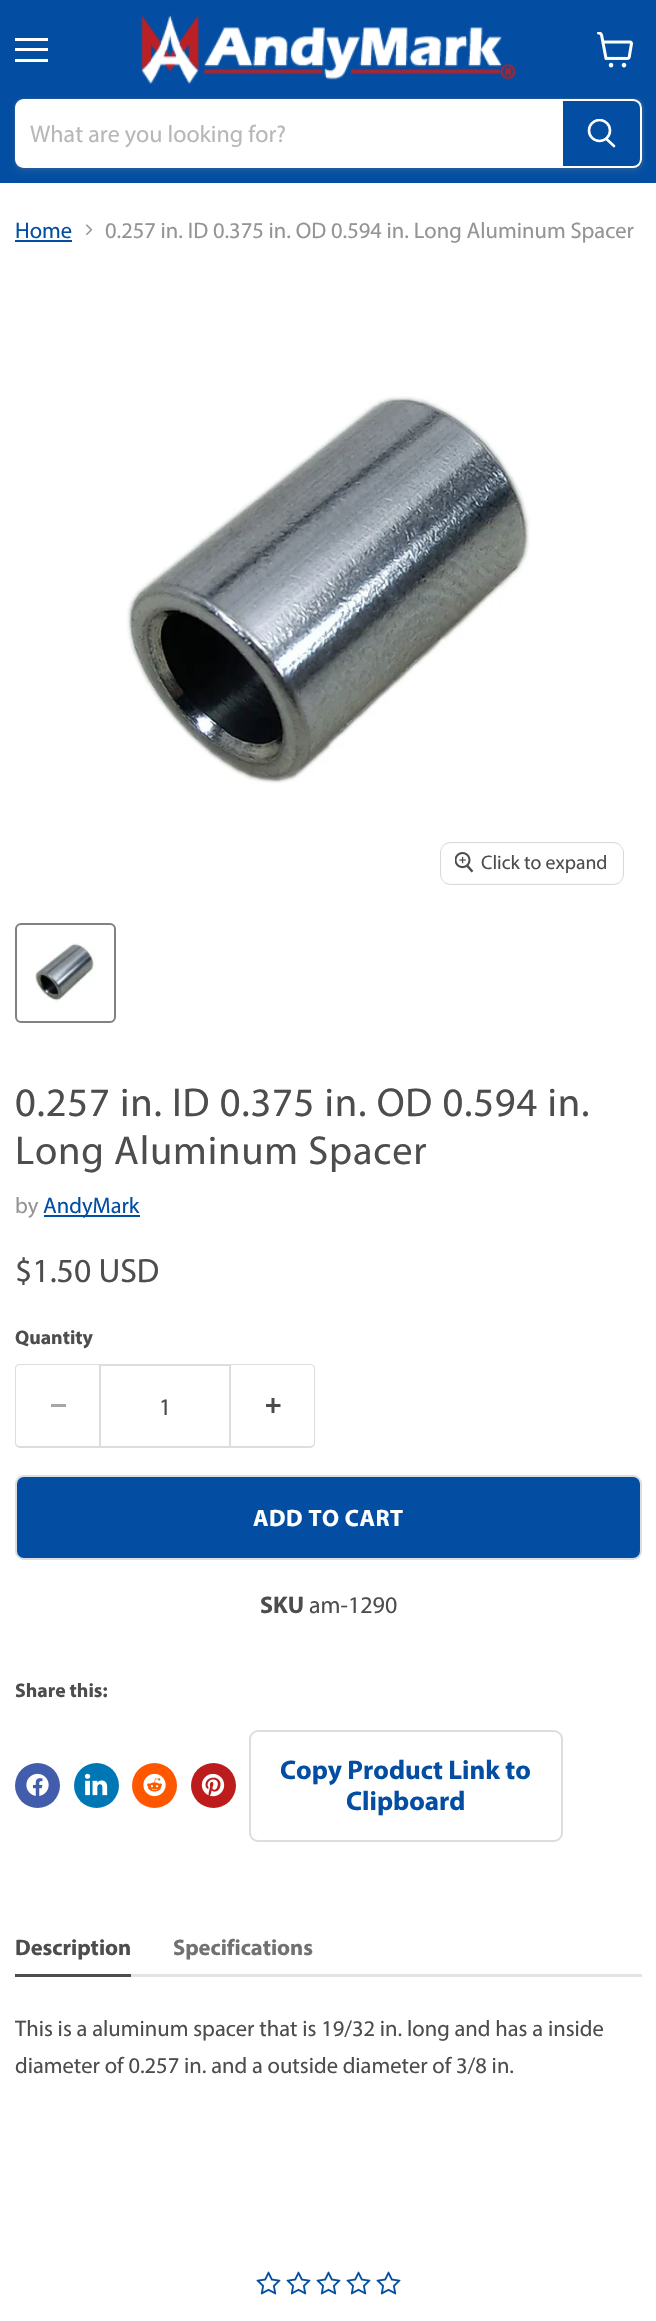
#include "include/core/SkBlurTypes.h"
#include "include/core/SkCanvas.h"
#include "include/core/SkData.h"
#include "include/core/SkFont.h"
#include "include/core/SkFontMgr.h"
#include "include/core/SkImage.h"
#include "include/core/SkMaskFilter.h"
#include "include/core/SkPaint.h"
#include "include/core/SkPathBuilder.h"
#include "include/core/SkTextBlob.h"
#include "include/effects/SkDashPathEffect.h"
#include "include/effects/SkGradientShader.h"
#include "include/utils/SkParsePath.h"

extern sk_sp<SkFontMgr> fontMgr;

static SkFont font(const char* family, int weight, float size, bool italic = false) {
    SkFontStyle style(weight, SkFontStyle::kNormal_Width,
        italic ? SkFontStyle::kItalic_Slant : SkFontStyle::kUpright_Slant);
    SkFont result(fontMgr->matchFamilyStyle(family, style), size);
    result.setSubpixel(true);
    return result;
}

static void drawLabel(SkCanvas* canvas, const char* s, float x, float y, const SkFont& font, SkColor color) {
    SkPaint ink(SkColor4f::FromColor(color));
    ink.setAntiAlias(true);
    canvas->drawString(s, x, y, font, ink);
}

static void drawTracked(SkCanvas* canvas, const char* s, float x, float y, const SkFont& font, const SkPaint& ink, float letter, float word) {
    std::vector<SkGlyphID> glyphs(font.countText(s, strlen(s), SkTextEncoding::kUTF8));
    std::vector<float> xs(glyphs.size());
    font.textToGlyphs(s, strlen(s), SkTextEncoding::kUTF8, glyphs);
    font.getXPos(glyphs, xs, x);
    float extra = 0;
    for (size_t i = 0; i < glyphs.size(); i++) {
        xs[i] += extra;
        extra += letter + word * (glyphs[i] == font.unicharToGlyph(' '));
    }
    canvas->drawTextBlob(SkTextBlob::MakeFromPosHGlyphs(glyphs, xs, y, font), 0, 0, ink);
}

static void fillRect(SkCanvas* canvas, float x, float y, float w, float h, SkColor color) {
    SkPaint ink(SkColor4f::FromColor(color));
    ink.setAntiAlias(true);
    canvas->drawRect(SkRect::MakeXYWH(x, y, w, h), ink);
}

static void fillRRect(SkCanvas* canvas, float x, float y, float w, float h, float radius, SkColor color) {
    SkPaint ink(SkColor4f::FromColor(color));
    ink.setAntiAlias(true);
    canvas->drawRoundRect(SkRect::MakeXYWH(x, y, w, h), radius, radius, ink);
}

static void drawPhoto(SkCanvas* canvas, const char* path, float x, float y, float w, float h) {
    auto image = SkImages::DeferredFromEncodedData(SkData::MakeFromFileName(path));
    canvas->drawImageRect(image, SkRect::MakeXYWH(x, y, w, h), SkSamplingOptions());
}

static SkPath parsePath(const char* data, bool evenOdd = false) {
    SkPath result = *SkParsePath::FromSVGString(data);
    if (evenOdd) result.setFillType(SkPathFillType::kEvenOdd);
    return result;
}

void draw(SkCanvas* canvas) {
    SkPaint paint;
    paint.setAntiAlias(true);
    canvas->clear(0xFFFFFFFF);
    fillRect(canvas, 0, 0, 656, 183, 0xFF034EA2);
    fillRect(canvas, 15, 38, 33, 3, 0xFFFFFFFF);
    fillRect(canvas, 15, 48, 33, 3, 0xFFFFFFFF);
    fillRect(canvas, 15, 59, 33, 3, 0xFFFFFFFF);
    drawPhoto(canvas, "assets/img1.png", 597, 32, 36, 36);
    drawPhoto(canvas, "assets/img2.png", 141, 15, 375, 69);
    canvas->save();
    canvas->clipPath(parsePath("M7 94H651V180H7ZM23 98H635C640 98 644 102 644 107V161C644 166 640 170 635 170H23C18 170 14 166 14 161V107C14 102 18 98 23 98Z", true), true);
    paint.setColor(0x1C808080);
    paint.setMaskFilter(SkMaskFilter::MakeBlur(kNormal_SkBlurStyle, 2));
    canvas->drawRoundRect(SkRect::MakeXYWH(14, 101, 630, 72), 9, 9, paint);
    paint.setMaskFilter(nullptr);
    canvas->restore();
    paint.setStroke(true);
    paint.setStrokeWidth(2);
    paint.setColor(0x33808080);
    canvas->drawRoundRect(SkRect::MakeXYWH(15, 99, 628, 70), 8, 8, paint);
    paint.setStroke(false);
    paint.setColor(0xFFFFFFFF);
    canvas->drawPath(parsePath("M24 99H561V168H24C19 168 15 164 15 159V108C15 103 19 99 24 99Z"), paint);
    SkFont font1 = font("Myriad", 400, 24);
    drawLabel(canvas, "What are you looking for?", 30, 142, font1, 0xFFB8B8B8);
    paint.setColor(0xFF034EA2);
    canvas->drawPath(parsePath("M562 100H633C637.5 100 641 103.5 641 108V159C641 163.5 637.5 167 633 167H562Z"), paint);
    paint.setStroke(true);
    paint.setColor(0xFFFFFFFF);
    canvas->drawPath(parsePath("M562 100H633C637.5 100 641 103.5 641 108V159C641 163.5 637.5 167 633 167H562Z"), paint);
    paint.setStrokeWidth(2.6f);
    paint.setStrokeCap(SkPaint::kRound_Cap);
    canvas->drawPath(parsePath("M614 146L606.5 139"), paint);
    canvas->save();
    canvas->clipRect(SkRect::MakeXYWH(587, 119, 30, 31));
    paint.setStrokeCap(SkPaint::kButt_Cap);
    canvas->drawCircle(599.5f, 130.5f, 10.5f, paint);
    canvas->restore();
    SkFont font2 = font("Myriad", 400, 22.5f);
    drawLabel(canvas, "Home", 15, 238, font2, 0xFF034EA2);
    fillRect(canvas, 15, 240, 57, 2, 0xFF034EA2);
    drawPhoto(canvas, "assets/img3.png", 85, 224, 8, 12);
    drawLabel(canvas, "0.257 in. ID 0.375 in. OD 0.594 in. Long Aluminum Spacer", 105, 238, font2, 0xFF949494);
    drawPhoto(canvas, "assets/img4.png", 126, 396, 404, 388);
    paint.setStrokeWidth(2);
    paint.setColor(0xFFD9D9D9);
    canvas->drawRoundRect(SkRect::MakeXYWH(441, 843, 182, 41), 10, 10, paint);
    fillRRect(canvas, 441, 843, 182, 41, 9, 0xE6FFFFFF);
    drawPhoto(canvas, "assets/img5.png", 455, 852, 19, 21);
    SkFont font3 = font("Myriad", 400, 19.75f);
    drawLabel(canvas, "Click to expand", 481, 869, font3, 0xFF4D4D4D);
    paint.setColor(0xFF818181);
    canvas->drawRoundRect(SkRect::MakeXYWH(16, 924, 99, 98), 5, 5, paint);
    drawPhoto(canvas, "assets/img6.png", 35, 943, 61, 60);
    SkFont font4 = font("Myriad", 400, 40.5f);
    paint.setStroke(false);
    paint.setColor(0xFF4D4D4D);
    drawTracked(canvas, "0.257 in. ID 0.375 in. OD 0.594 in.", 15, 1116, font4, paint, 0.8f, 0);
    drawTracked(canvas, "Long Aluminum Spacer", 15, 1164, font4, paint, 0.8f, 0);
    drawLabel(canvas, "by", 15, 1213, font2, 0xFF949494);
    fillRect(canvas, 44, 1215, 96, 2, 0xFF034EA2);
    drawLabel(canvas, "AndyMark", 43, 1213, font2, 0xFF034EA2);
    SkFont font5 = font("Myriad", 400, 33.75f);
    drawLabel(canvas, "$1.50 USD", 15, 1282, font5, 0xFF4D4D4D);
    SkFont font6 = font("Myriad", 700, 19.75f);
    drawLabel(canvas, "Quantity", 15, 1344, font6, 0xFF4D4D4D);
    paint.setColor(0xFFDDDDDD);
    canvas->drawPath(parsePath("M20 1364H99V1448H20C17 1448 15 1445 15 1443V1368C15 1366 17 1364 20 1364ZM20 1365H99V1446H20C18 1446 16 1445 16 1443V1368C16 1366 18 1365 20 1365Z", true), paint);
    fillRect(canvas, 51, 1404, 15, 3, 0xFFA6A6A6);
    paint.setStroke(true);
    canvas->drawRect(SkRect::MakeXYWH(100, 1365, 130, 82), paint);
    SkFont font7 = font("Myriad", 400, 23.75f);
    drawLabel(canvas, "1", 159, 1415, font7, 0xFF4D4D4D);
    paint.setStroke(false);
    canvas->drawPath(parsePath("M231 1364H310C313 1364 315 1366 315 1368V1443C315 1445 313 1448 310 1448H231ZM231 1365H310C312 1365 314 1366 314 1368V1443C314 1445 312 1446 310 1446H231Z", true), paint);
    drawPhoto(canvas, "assets/img7.png", 266, 1398, 15, 15);
    paint.setColor(0xFF034EA2);
    canvas->drawRoundRect(SkRect::MakeXYWH(16, 1476, 625, 83), 8, 8, paint);
    paint.setStroke(true);
    paint.setColor(0xFFDDDDDD);
    canvas->drawRoundRect(SkRect::MakeXYWH(16, 1476, 625, 83), 8, 8, paint);
    SkFont font8 = font("Myriad", 700, 23.75f);
    paint.setStroke(false);
    paint.setColor(0xFFFFFFFF);
    drawTracked(canvas, "ADD TO CART", 253, 1526, font8, paint, 0.5f, 0);
    SkFont font9 = font("Myriad", 700, 24);
    drawLabel(canvas, "SKU", 260, 1613, font9, 0xFF4D4D4D);
    drawLabel(canvas, "am-1290", 309, 1613, font1, 0xFF4D4D4D);
    drawLabel(canvas, "Share this:", 15, 1697, font6, 0xFF4D4D4D);
    paint.setColor(0xFF425DAB);
    canvas->drawCircle(37.5f, 1785.5f, 22.5f, paint);
    drawPhoto(canvas, "assets/img8.png", 26, 1773, 23, 23);
    paint.setColor(0xFF0077B5);
    canvas->drawCircle(96.5f, 1785.5f, 22.5f, paint);
    drawPhoto(canvas, "assets/img9.png", 84, 1773, 24, 23);
    paint.setColor(0xFFFF5700);
    canvas->drawCircle(154.5f, 1785.5f, 22.5f, paint);
    drawPhoto(canvas, "assets/img10.png", 143, 1773, 23, 24);
    paint.setColor(0xFFBD1C1C);
    canvas->drawCircle(213.5f, 1785.5f, 22.5f, paint);
    drawPhoto(canvas, "assets/img11.png", 201, 1773, 24, 24);
    paint.setStroke(true);
    paint.setColor(0xFFDDDDDD);
    canvas->drawRoundRect(SkRect::MakeXYWH(250, 1731, 312, 110), 8, 8, paint);
    SkFont font10 = font("Myriad", 700, 27);
    drawLabel(canvas, "Copy Product Link to", 280, 1779, font10, 0xFF034EA2);
    drawLabel(canvas, "Clipboard", 346, 1810, font10, 0xFF034EA2);
    fillRect(canvas, 131, 1974, 511, 3, 0xFFE4E4E4);
    SkFont font11 = font("Myriad", 700, 22.5f);
    drawLabel(canvas, "Description", 15, 1955, font11, 0xFF4D4D4D);
    fillRect(canvas, 15, 1974, 116, 3, 0xFF4D4D4D);
    drawLabel(canvas, "Specifications", 173, 1955, font11, 0xFF717171);
    drawLabel(canvas, "This is a aluminum spacer that is 19/32 in. long and has a inside", 15, 2036, font2, 0xFF4D4D4D);
    drawLabel(canvas, "diameter of 0.257 in. and a outside diameter of 3/8 in.", 15, 2073, font2, 0xFF4D4D4D);
    drawPhoto(canvas, "assets/img12.png", 256, 2271, 25, 24);
    drawPhoto(canvas, "assets/img12.png", 286, 2271, 25, 24);
    drawPhoto(canvas, "assets/img12.png", 316, 2271, 25, 24);
    drawPhoto(canvas, "assets/img12.png", 346, 2271, 25, 24);
    drawPhoto(canvas, "assets/img12.png", 376, 2271, 25, 24);
}
